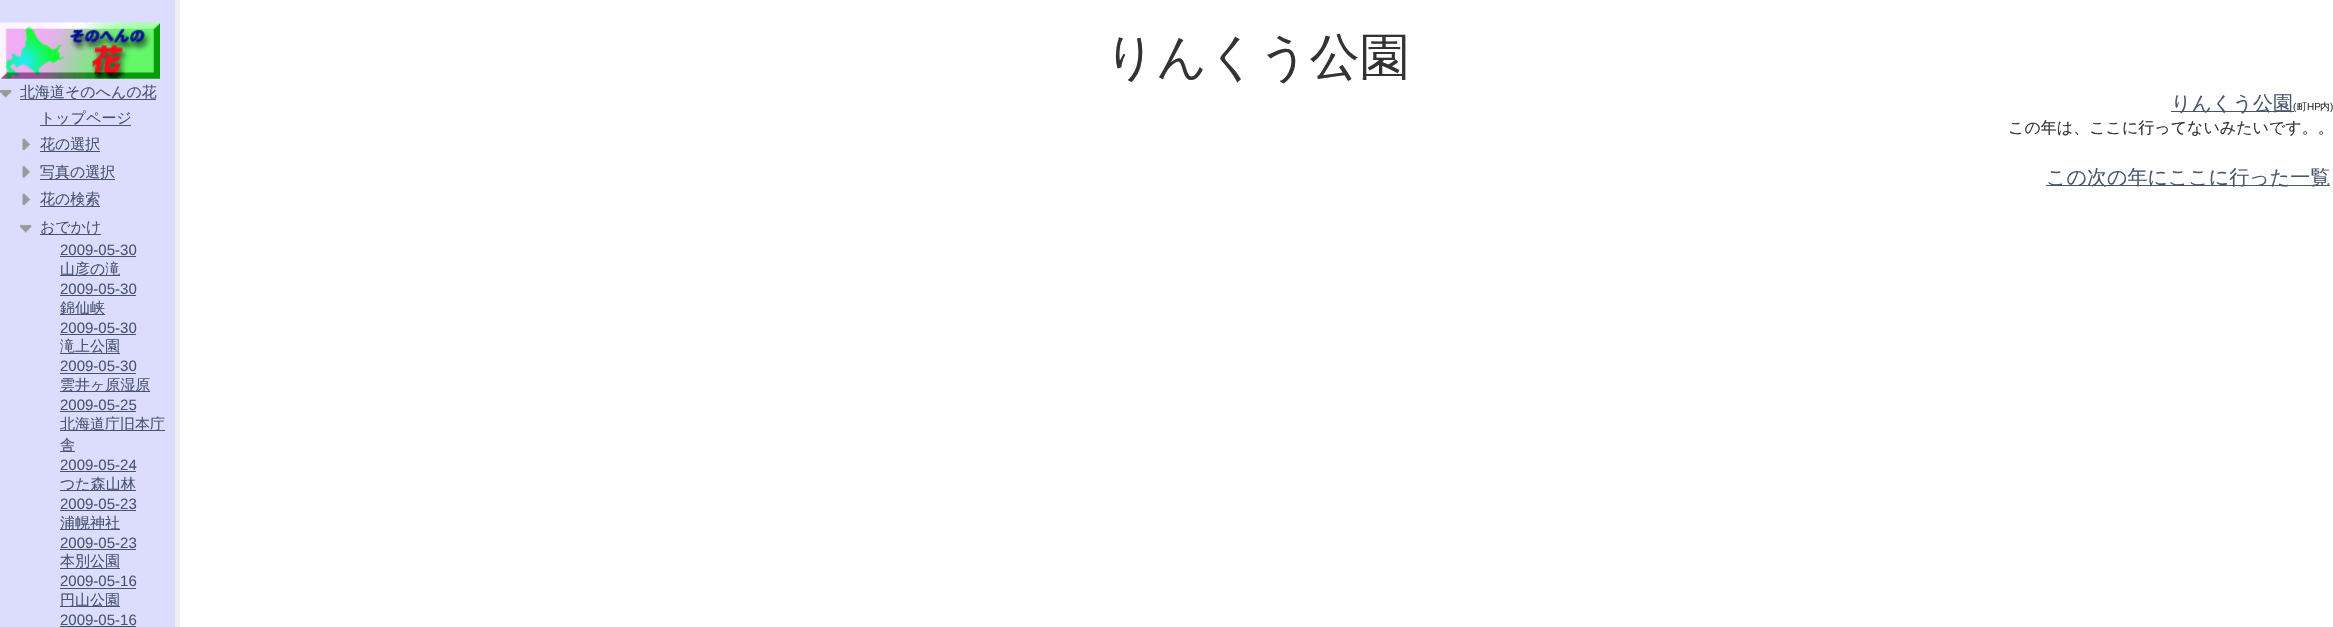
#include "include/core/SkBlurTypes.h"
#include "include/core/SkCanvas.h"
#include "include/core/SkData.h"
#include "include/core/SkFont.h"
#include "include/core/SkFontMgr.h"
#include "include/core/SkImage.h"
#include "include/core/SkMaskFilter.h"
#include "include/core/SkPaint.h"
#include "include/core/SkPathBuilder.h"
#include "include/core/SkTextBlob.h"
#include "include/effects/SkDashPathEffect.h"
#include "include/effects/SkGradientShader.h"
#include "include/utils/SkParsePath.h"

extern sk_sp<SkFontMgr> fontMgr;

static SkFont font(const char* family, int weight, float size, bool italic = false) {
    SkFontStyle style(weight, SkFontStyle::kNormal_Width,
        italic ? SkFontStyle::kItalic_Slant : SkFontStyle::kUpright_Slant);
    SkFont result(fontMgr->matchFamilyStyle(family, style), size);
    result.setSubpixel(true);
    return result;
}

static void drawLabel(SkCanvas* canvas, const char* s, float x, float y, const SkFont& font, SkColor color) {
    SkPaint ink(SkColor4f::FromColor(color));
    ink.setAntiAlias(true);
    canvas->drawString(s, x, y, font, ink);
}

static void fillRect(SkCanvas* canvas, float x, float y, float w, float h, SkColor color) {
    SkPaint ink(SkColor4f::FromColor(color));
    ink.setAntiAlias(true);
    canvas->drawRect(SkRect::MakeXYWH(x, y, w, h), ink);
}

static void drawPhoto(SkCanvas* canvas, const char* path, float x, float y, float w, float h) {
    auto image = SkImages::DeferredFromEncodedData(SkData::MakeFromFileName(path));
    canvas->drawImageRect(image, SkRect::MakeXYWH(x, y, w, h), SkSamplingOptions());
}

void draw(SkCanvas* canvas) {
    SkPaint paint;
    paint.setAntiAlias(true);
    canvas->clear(0xFFFFFFFF);
    fillRect(canvas, 0, 0, 175, 627, 0xFFDCDCFF);
    drawPhoto(canvas, "assets/img1.png", 0, 22, 160, 57);
    drawPhoto(canvas, "assets/img2.png", 0, 89, 12, 9);
    fillRect(canvas, 20, 99, 136, 1, 0xFF46546C);
    SkFont font1 = font("WenQuanYi Zen Hei", 500, 15);
    drawLabel(canvas, "北海道そのへんの花", 20, 97, font1, 0xFF46546C);
    drawLabel(canvas, "トップページ", 40, 123, font1, 0xFF46546C);
    fillRect(canvas, 40, 125, 91, 1, 0xFF46546C);
    drawPhoto(canvas, "assets/img3.png", 22, 138, 9, 12);
    fillRect(canvas, 40, 151, 60, 1, 0xFF46546C);
    drawLabel(canvas, "花の選択", 40, 149, font1, 0xFF46546C);
    drawPhoto(canvas, "assets/img4.png", 22, 166, 9, 12);
    fillRect(canvas, 40, 179, 75, 1, 0xFF46546C);
    drawLabel(canvas, "写真の選択", 40, 177, font1, 0xFF46546C);
    drawPhoto(canvas, "assets/img3.png", 22, 193, 9, 12);
    fillRect(canvas, 40, 206, 60, 1, 0xFF46546C);
    drawLabel(canvas, "花の検索", 40, 204, font1, 0xFF46546C);
    drawPhoto(canvas, "assets/img5.png", 20, 224, 12, 9);
    fillRect(canvas, 40, 234, 61, 1, 0xFF46546C);
    drawLabel(canvas, "おでかけ", 40, 232, font1, 0xFF46546C);
    SkFont font2 = font("Liberation Sans", 400, 15);
    drawLabel(canvas, "2009-05-30", 60, 255, font2, 0xFF46546C);
    fillRect(canvas, 60, 256, 76, 1, 0xFF46546C);
    fillRect(canvas, 60, 275, 60, 1, 0xFF46546C);
    drawLabel(canvas, "山彦の滝", 60, 274, font1, 0xFF46546C);
    drawLabel(canvas, "2009-05-30", 60, 294, font2, 0xFF46546C);
    fillRect(canvas, 60, 295, 76, 1, 0xFF46546C);
    fillRect(canvas, 60, 314, 45, 1, 0xFF46546C);
    drawLabel(canvas, "錦仙峡", 60, 313, font1, 0xFF46546C);
    drawLabel(canvas, "2009-05-30", 60, 333, font2, 0xFF46546C);
    fillRect(canvas, 60, 334, 76, 1, 0xFF46546C);
    fillRect(canvas, 60, 353, 60, 1, 0xFF46546C);
    drawLabel(canvas, "滝上公園", 60, 351, font1, 0xFF46546C);
    drawLabel(canvas, "2009-05-30", 60, 371, font2, 0xFF46546C);
    fillRect(canvas, 60, 373, 76, 1, 0xFF46546C);
    fillRect(canvas, 60, 391, 90, 1, 0xFF46546C);
    drawLabel(canvas, "雲井ヶ原湿原", 60, 390, font1, 0xFF46546C);
    drawLabel(canvas, "2009-05-25", 60, 410, font2, 0xFF46546C);
    fillRect(canvas, 60, 411, 76, 1, 0xFF46546C);
    fillRect(canvas, 60, 430, 105, 1, 0xFF46546C);
    drawLabel(canvas, "北海道庁旧本庁", 60, 429, font1, 0xFF46546C);
    fillRect(canvas, 60, 451, 15, 1, 0xFF46546C);
    drawLabel(canvas, "舎", 60, 450, font1, 0xFF46546C);
    drawLabel(canvas, "2009-05-24", 60, 470, font2, 0xFF46546C);
    fillRect(canvas, 60, 471, 76, 1, 0xFF46546C);
    fillRect(canvas, 60, 490, 76, 1, 0xFF46546C);
    drawLabel(canvas, "つた森山林", 60, 489, font1, 0xFF46546C);
    drawLabel(canvas, "2009-05-23", 60, 509, font2, 0xFF46546C);
    fillRect(canvas, 60, 510, 76, 1, 0xFF46546C);
    fillRect(canvas, 60, 529, 60, 1, 0xFF46546C);
    drawLabel(canvas, "浦幌神社", 60, 528, font1, 0xFF46546C);
    drawLabel(canvas, "2009-05-23", 60, 548, font2, 0xFF46546C);
    fillRect(canvas, 60, 549, 76, 1, 0xFF46546C);
    fillRect(canvas, 60, 568, 60, 1, 0xFF46546C);
    drawLabel(canvas, "本別公園", 60, 566, font1, 0xFF46546C);
    drawLabel(canvas, "2009-05-16", 60, 586, font2, 0xFF46546C);
    fillRect(canvas, 60, 588, 76, 1, 0xFF46546C);
    fillRect(canvas, 60, 606, 60, 1, 0xFF46546C);
    drawLabel(canvas, "円山公園", 60, 605, font1, 0xFF46546C);
    drawLabel(canvas, "2009-05-16", 60, 625, font2, 0xFF46546C);
    fillRect(canvas, 60, 626, 76, 1, 0xFF46546C);
    fillRect(canvas, 175, 0, 5, 627, 0xFFEEEEEE);
    SkFont font3 = font("WenQuanYi Zen Hei", 500, 50);
    drawLabel(canvas, "りんくう公園", 1105, 74, font3, 0xFF333333);
    fillRect(canvas, 2171, 111, 123, 1, 0xFF46546C);
    SkFont font4 = font("WenQuanYi Zen Hei", 500, 20);
    drawLabel(canvas, "りんくう公園", 2171, 110, font4, 0xFF46546C);
    SkFont font5 = font("Liberation Sans", 400, 10);
    drawLabel(canvas, "(", 2293, 110, font5, 0xFF333333);
    SkFont font6 = font("WenQuanYi Zen Hei", 500, 10);
    drawLabel(canvas, "町", 2297, 110, font6, 0xFF333333);
    drawLabel(canvas, "HP", 2307, 110, font5, 0xFF333333);
    drawLabel(canvas, "内", 2320, 110, font6, 0xFF333333);
    drawLabel(canvas, ")", 2330, 110, font5, 0xFF333333);
    SkFont font7 = font("WenQuanYi Zen Hei", 500, 16);
    drawLabel(canvas, "この年は、ここに行ってないみたいです。。", 2008, 133, font7, 0xFF333333);
    fillRect(canvas, 2046, 185, 284, 1, 0xFF46546C);
    drawLabel(canvas, "この次の年にここに行った一覧", 2046, 184, font4, 0xFF46546C);
}
